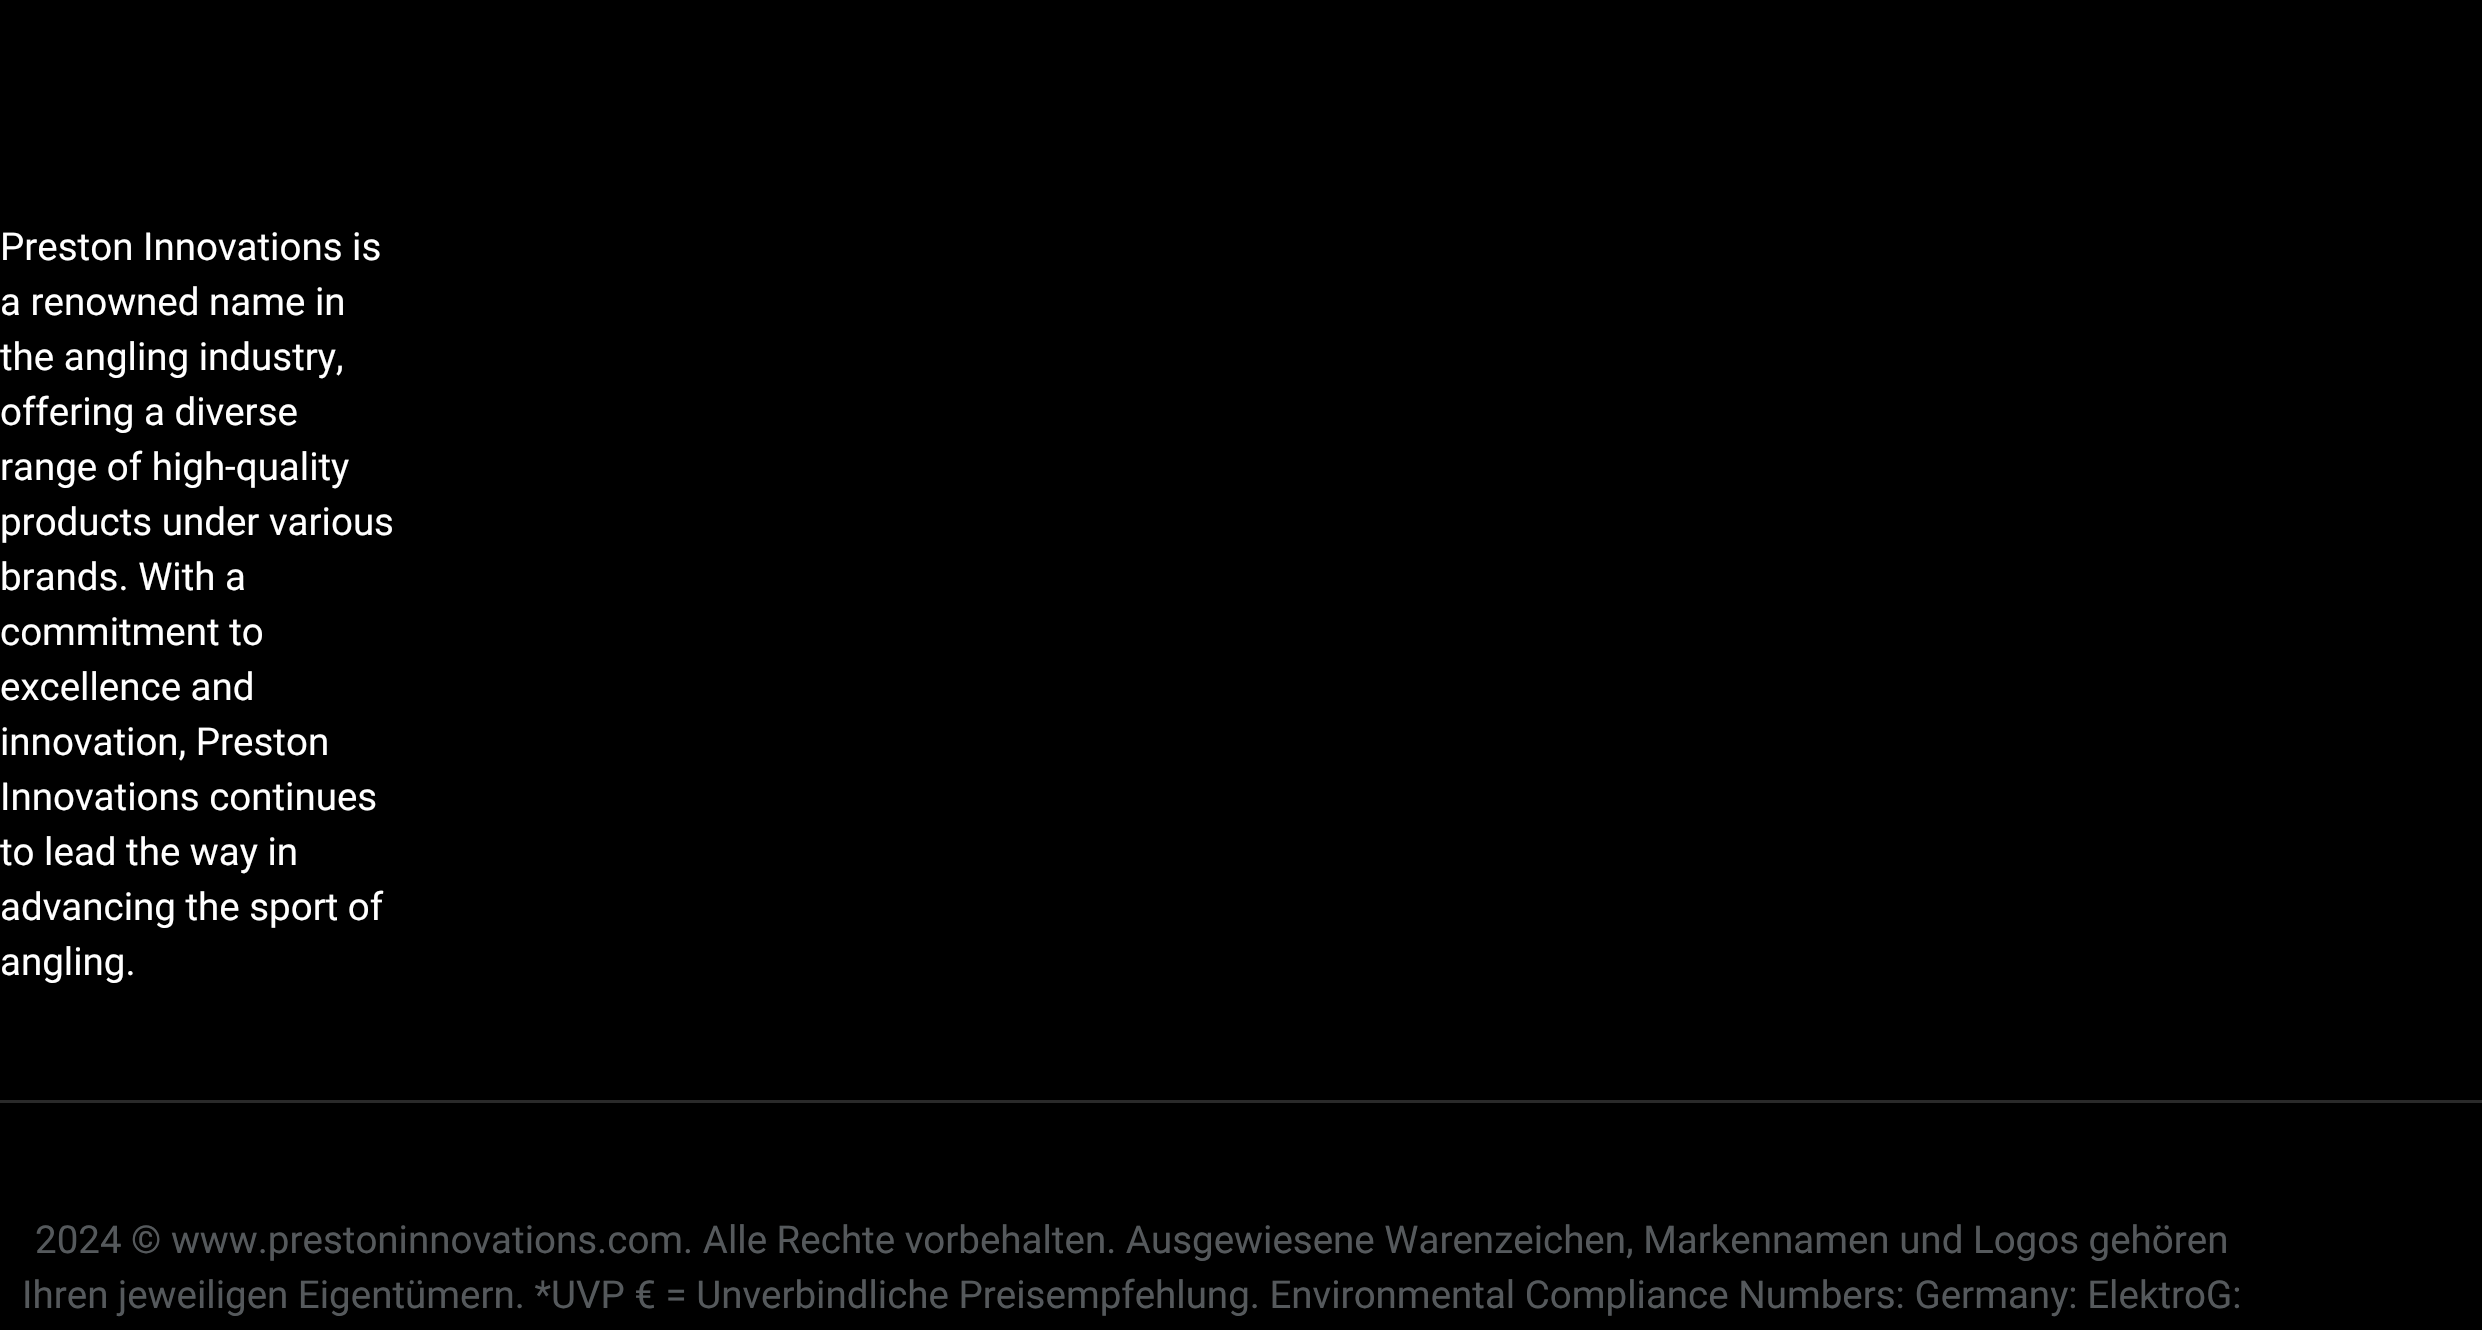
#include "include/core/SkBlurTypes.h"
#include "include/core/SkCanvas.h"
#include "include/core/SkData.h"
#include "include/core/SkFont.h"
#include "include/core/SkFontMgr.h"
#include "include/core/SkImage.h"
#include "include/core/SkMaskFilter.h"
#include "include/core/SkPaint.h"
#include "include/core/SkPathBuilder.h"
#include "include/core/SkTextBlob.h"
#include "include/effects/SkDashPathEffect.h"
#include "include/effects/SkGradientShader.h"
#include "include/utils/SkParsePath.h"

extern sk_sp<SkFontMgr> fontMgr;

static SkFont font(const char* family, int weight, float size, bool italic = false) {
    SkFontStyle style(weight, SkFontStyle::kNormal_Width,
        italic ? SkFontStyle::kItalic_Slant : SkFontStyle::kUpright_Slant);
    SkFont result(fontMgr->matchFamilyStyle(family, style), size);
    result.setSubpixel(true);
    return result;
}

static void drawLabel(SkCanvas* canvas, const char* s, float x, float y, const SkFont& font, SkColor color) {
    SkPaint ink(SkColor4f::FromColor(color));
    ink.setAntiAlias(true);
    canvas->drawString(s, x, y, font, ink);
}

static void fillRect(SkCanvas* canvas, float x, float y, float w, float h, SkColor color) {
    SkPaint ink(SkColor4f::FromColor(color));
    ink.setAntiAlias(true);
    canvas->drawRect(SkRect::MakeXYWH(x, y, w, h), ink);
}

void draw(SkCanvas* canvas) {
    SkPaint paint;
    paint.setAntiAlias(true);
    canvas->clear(0xFF000000);
    SkFont font1 = font("Roboto", 400, 38.5f);
    drawLabel(canvas, "Preston Innovations is", 0, 260, font1, 0xFFFFFFFF);
    drawLabel(canvas, "a renowned name in", 0, 315, font1, 0xFFFFFFFF);
    drawLabel(canvas, "the angling industry,", 0, 370, font1, 0xFFFFFFFF);
    drawLabel(canvas, "offering a diverse", 0, 425, font1, 0xFFFFFFFF);
    drawLabel(canvas, "range of high-quality", 0, 480, font1, 0xFFFFFFFF);
    drawLabel(canvas, "products under various", 0, 535, font1, 0xFFFFFFFF);
    drawLabel(canvas, "brands. With a", 0, 590, font1, 0xFFFFFFFF);
    drawLabel(canvas, "commitment to", 0, 645, font1, 0xFFFFFFFF);
    drawLabel(canvas, "excellence and", 0, 700, font1, 0xFFFFFFFF);
    drawLabel(canvas, "innovation, Preston", 0, 755, font1, 0xFFFFFFFF);
    drawLabel(canvas, "Innovations continues", 0, 810, font1, 0xFFFFFFFF);
    drawLabel(canvas, "to lead the way in", 0, 865, font1, 0xFFFFFFFF);
    drawLabel(canvas, "advancing the sport of", 0, 920, font1, 0xFFFFFFFF);
    drawLabel(canvas, "angling.", 0, 975, font1, 0xFFFFFFFF);
    fillRect(canvas, 0, 1100, 2482, 3, 0xFF2A2A2A);
    drawLabel(canvas, "2024 © www.prestoninnovations.com. Alle Rechte vorbehalten. Ausgewiesene Warenzeichen, Markennamen und Logos gehören", 35, 1253, font1, 0xFF55595C);
    drawLabel(canvas, "Ihren jeweiligen Eigentümern. *UVP € = Unverbindliche Preisempfehlung. Environmental Compliance Numbers: Germany: ElektroG:", 22, 1308, font1, 0xFF55595C);
}
